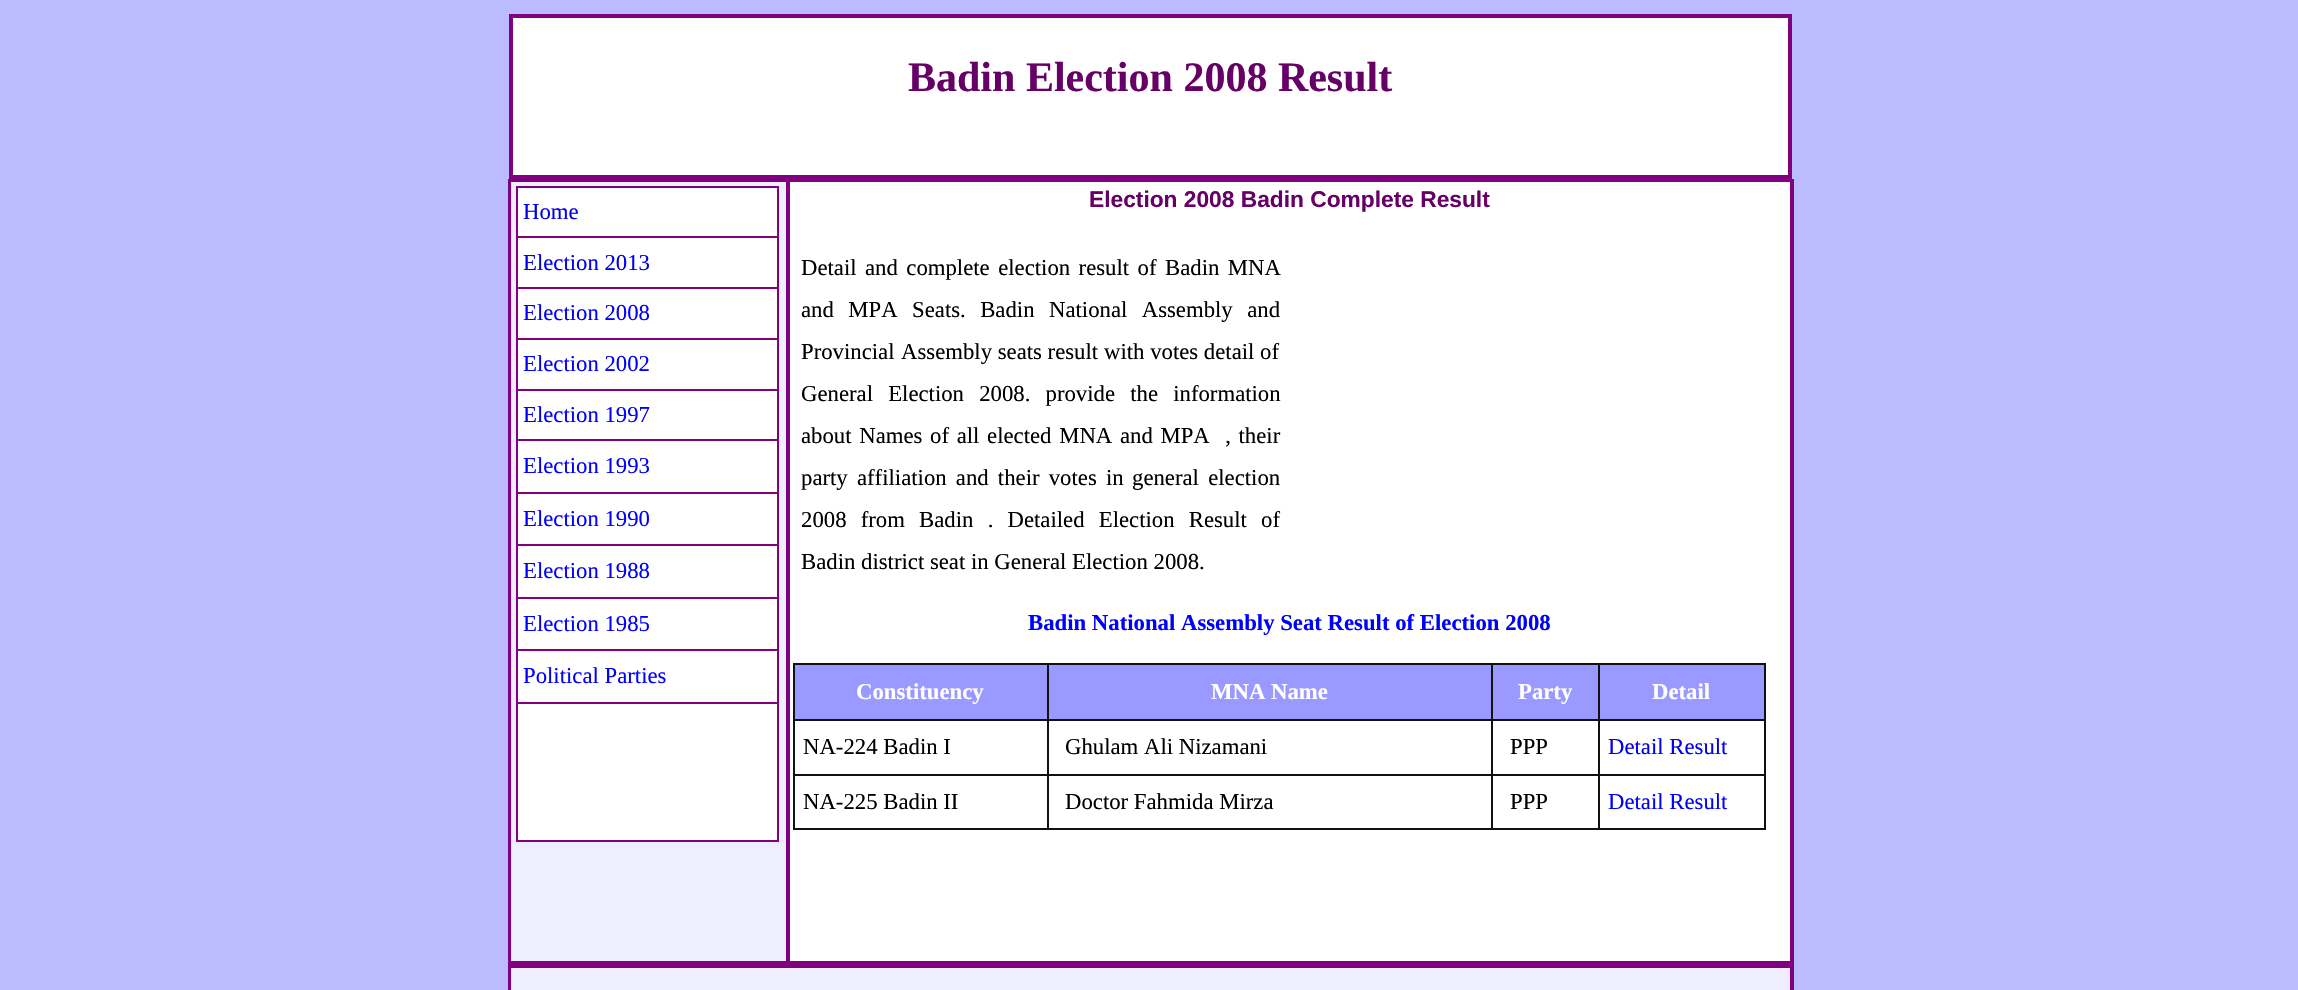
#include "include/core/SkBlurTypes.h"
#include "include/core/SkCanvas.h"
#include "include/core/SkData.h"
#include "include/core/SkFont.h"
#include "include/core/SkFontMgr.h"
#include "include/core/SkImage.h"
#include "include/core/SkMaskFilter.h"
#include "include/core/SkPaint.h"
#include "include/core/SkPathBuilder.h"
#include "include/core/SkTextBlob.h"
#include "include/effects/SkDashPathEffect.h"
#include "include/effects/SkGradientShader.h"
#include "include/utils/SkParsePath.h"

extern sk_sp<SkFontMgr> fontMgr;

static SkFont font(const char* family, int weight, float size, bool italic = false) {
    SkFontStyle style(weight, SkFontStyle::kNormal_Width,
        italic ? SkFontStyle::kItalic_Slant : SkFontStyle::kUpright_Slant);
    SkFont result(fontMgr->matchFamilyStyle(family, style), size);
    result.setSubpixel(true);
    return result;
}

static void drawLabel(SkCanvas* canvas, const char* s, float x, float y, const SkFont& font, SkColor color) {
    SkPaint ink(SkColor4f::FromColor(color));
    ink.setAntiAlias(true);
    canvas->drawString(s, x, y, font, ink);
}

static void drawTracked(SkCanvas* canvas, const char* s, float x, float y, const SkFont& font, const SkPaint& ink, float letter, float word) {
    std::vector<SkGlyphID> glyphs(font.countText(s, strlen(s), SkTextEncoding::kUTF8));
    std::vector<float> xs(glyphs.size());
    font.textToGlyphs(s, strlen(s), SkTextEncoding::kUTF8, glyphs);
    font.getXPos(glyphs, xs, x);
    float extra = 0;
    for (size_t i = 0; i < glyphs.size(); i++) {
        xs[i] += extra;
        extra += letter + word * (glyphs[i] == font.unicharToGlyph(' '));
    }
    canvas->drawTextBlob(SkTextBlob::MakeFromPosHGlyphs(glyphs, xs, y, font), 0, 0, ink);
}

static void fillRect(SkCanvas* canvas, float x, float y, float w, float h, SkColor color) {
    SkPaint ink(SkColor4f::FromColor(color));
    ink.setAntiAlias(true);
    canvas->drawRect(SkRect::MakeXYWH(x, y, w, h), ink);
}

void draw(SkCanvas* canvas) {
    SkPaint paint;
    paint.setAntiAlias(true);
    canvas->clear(0xFFBBBBFF);
    paint.setStroke(true);
    paint.setStrokeWidth(2);
    paint.setColor(0xFF800080);
    canvas->drawRect(SkRect::MakeXYWH(510, 15, 1281, 163), paint);
    paint.setStroke(false);
    paint.setColor(0xFFFFFFFF);
    canvas->drawRect(SkRect::MakeXYWH(512, 17, 1277, 159), paint);
    paint.setStroke(true);
    paint.setColor(0xFF800080);
    canvas->drawRect(SkRect::MakeXYWH(512, 17, 1277, 159), paint);
    SkFont font1 = font("Liberation Serif", 700, 42);
    drawLabel(canvas, "Badin Election 2008 Result", 908, 91, font1, 0xFF660066);
    canvas->drawRect(SkRect::MakeXYWH(509, 180, 1284, 783), paint);
    paint.setStroke(false);
    paint.setColor(0xFFEEEEFF);
    canvas->drawRect(SkRect::MakeXYWH(510, 181, 277, 781), paint);
    paint.setStroke(true);
    paint.setColor(0xFF800080);
    canvas->drawRect(SkRect::MakeXYWH(510, 181, 277, 781), paint);
    fillRect(canvas, 516, 186, 263, 2, 0xFF800080);
    fillRect(canvas, 777, 186, 2, 656, 0xFF800080);
    fillRect(canvas, 516, 840, 263, 2, 0xFF800080);
    fillRect(canvas, 516, 186, 2, 656, 0xFF800080);
    fillRect(canvas, 518, 188, 259, 48, 0xFFFFFFFF);
    SkFont font2 = font("Liberation Serif", 400, 22.75f);
    drawLabel(canvas, "Home", 523, 219, font2, 0xFF0000EE);
    fillRect(canvas, 518, 238, 259, 49, 0xFFFFFFFF);
    fillRect(canvas, 516, 236, 263, 2, 0xFF800080);
    drawLabel(canvas, "Election 2013", 523, 270, font2, 0xFF0000EE);
    fillRect(canvas, 518, 289, 259, 49, 0xFFFFFFFF);
    fillRect(canvas, 516, 287, 263, 2, 0xFF800080);
    drawLabel(canvas, "Election 2008", 523, 320, font2, 0xFF0000FF);
    fillRect(canvas, 518, 340, 259, 49, 0xFFFFFFFF);
    fillRect(canvas, 516, 338, 263, 2, 0xFF800080);
    drawLabel(canvas, "Election 2002", 523, 371, font2, 0xFF0000FF);
    fillRect(canvas, 518, 391, 259, 48, 0xFFFFFFFF);
    fillRect(canvas, 516, 389, 263, 2, 0xFF800080);
    drawLabel(canvas, "Election 1997", 523, 422, font2, 0xFF0000FF);
    fillRect(canvas, 518, 441, 259, 51, 0xFFFFFFFF);
    fillRect(canvas, 516, 439, 263, 2, 0xFF800080);
    drawLabel(canvas, "Election 1993", 523, 473, font2, 0xFF0000FF);
    fillRect(canvas, 518, 494, 259, 50, 0xFFFFFFFF);
    fillRect(canvas, 516, 492, 263, 2, 0xFF800080);
    drawLabel(canvas, "Election 1990", 523, 526, font2, 0xFF0000FF);
    fillRect(canvas, 518, 546, 259, 51, 0xFFFFFFFF);
    fillRect(canvas, 516, 544, 263, 2, 0xFF800080);
    drawLabel(canvas, "Election 1988", 523, 578, font2, 0xFF0000FF);
    fillRect(canvas, 518, 599, 259, 50, 0xFFFFFFFF);
    fillRect(canvas, 516, 597, 263, 2, 0xFF800080);
    drawLabel(canvas, "Election 1985", 523, 631, font2, 0xFF0000FF);
    fillRect(canvas, 518, 651, 259, 51, 0xFFFFFFFF);
    fillRect(canvas, 516, 649, 263, 2, 0xFF800080);
    drawLabel(canvas, "Political Parties", 523, 683, font2, 0xFF0000FF);
    fillRect(canvas, 518, 704, 259, 136, 0xFFFFFFFF);
    fillRect(canvas, 516, 702, 263, 2, 0xFF800080);
    paint.setStroke(false);
    paint.setColor(0xFFFFFFFF);
    canvas->drawRect(SkRect::MakeXYWH(789, 181, 1002, 781), paint);
    paint.setStroke(true);
    paint.setColor(0xFF800080);
    canvas->drawRect(SkRect::MakeXYWH(789, 181, 1002, 781), paint);
    SkFont font3 = font("Liberation Sans", 700, 22.75f);
    drawLabel(canvas, "Election 2008 Badin Complete Result", 1089, 207, font3, 0xFF660066);
    paint.setStroke(false);
    paint.setColor(0xFF000000);
    drawTracked(canvas, "Detail and complete election result of", 801, 275, font2, paint, 0, 2.75f);
    drawTracked(canvas, "Badin MNA", 1165, 275, font2, paint, 0, 2.75f);
    drawTracked(canvas, "and MPA Seats. Badin National Assembly and", 801, 317, font2, paint, 0, 8.75f);
    drawLabel(canvas, "Provincial", 801, 359, font2, 0xFF000000);
    drawLabel(canvas, "Assembly seats result", 901, 359, font2, 0xFF000000);
    drawLabel(canvas, "with votes detail of", 1104, 359, font2, 0xFF000000);
    drawTracked(canvas, "General Election 2008. provide the information", 801, 401, font2, paint, 0, 9.5f);
    drawTracked(canvas, "about Names", 801, 443, font2, paint, 0, 2);
    drawTracked(canvas, "of all elected MNA and MPA  , their", 930, 443, font2, paint, 0, 2);
    drawTracked(canvas, "party affiliation and their votes in", 801, 485, font2, paint, 0, 3.5f);
    drawTracked(canvas, "general election", 1132, 485, font2, paint, 0, 3.5f);
    drawTracked(canvas, "2008 from Badin . Detailed Election Result of", 801, 527, font2, paint, 0, 8.5f);
    drawLabel(canvas, "Badin district seat in General Election 2008.", 801, 569, font2, 0xFF000000);
    SkFont font4 = font("Liberation Serif", 700, 22.75f);
    drawLabel(canvas, "Badin National Assembly Seat Result of Election 2008", 1028, 630, font4, 0xFF0000FF);
    fillRect(canvas, 793, 663, 973, 2, 0xFF111111);
    fillRect(canvas, 1764, 663, 2, 167, 0xFF111111);
    fillRect(canvas, 793, 828, 973, 2, 0xFF111111);
    fillRect(canvas, 793, 663, 2, 167, 0xFF111111);
    fillRect(canvas, 795, 665, 252, 54, 0xFF9999FF);
    drawLabel(canvas, "Constituency", 856, 699, font4, 0xFFFFFFFF);
    fillRect(canvas, 1049, 665, 442, 54, 0xFF9999FF);
    fillRect(canvas, 1598, 719, 168, 2, 0xFF111111);
    fillRect(canvas, 1598, 774, 168, 2, 0xFF111111);
    fillRect(canvas, 1598, 774, 2, 56, 0xFF111111);
    fillRect(canvas, 1491, 774, 109, 2, 0xFF111111);
    fillRect(canvas, 1598, 719, 2, 56, 0xFF111111);
    fillRect(canvas, 1491, 719, 109, 2, 0xFF111111);
    fillRect(canvas, 1491, 774, 2, 56, 0xFF111111);
    fillRect(canvas, 1047, 774, 446, 2, 0xFF111111);
    fillRect(canvas, 1491, 719, 2, 56, 0xFF111111);
    fillRect(canvas, 1047, 719, 446, 2, 0xFF111111);
    fillRect(canvas, 1047, 774, 2, 56, 0xFF111111);
    fillRect(canvas, 793, 774, 255, 2, 0xFF111111);
    fillRect(canvas, 1047, 719, 2, 56, 0xFF111111);
    fillRect(canvas, 793, 719, 255, 2, 0xFF111111);
    fillRect(canvas, 1047, 663, 2, 58, 0xFF111111);
    drawLabel(canvas, "MNA Name", 1211, 699, font4, 0xFFFFFFFF);
    fillRect(canvas, 1493, 665, 105, 54, 0xFF9999FF);
    fillRect(canvas, 1491, 663, 2, 58, 0xFF111111);
    drawLabel(canvas, "Party", 1518, 699, font4, 0xFFFFFFFF);
    fillRect(canvas, 1600, 665, 164, 54, 0xFF9999FF);
    fillRect(canvas, 1598, 663, 2, 58, 0xFF111111);
    drawLabel(canvas, "Detail", 1652, 699, font4, 0xFFFFFFFF);
    drawLabel(canvas, "NA-224 Badin I", 803, 754, font2, 0xFF000000);
    drawLabel(canvas, "Ghulam Ali Nizamani", 1065, 754, font2, 0xFF000000);
    drawLabel(canvas, "PPP", 1510, 754, font2, 0xFF000000);
    drawLabel(canvas, "Detail Result", 1608, 754, font2, 0xFF0000EE);
    drawLabel(canvas, "NA-225 Badin II", 803, 809, font2, 0xFF000000);
    drawLabel(canvas, "Doctor Fahmida Mirza", 1065, 809, font2, 0xFF000000);
    drawLabel(canvas, "PPP", 1510, 809, font2, 0xFF000000);
    drawLabel(canvas, "Detail Result", 1608, 809, font2, 0xFF0000FF);
    paint.setStroke(true);
    paint.setColor(0xFF800080);
    canvas->drawRect(SkRect::MakeXYWH(509, 965, 1284, 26), paint);
    paint.setStroke(false);
    paint.setColor(0xFFEEEEFF);
    canvas->drawRect(SkRect::MakeXYWH(510, 967, 1281, 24), paint);
    paint.setStroke(true);
    paint.setColor(0xFF800080);
    canvas->drawRect(SkRect::MakeXYWH(510, 967, 1281, 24), paint);
}
